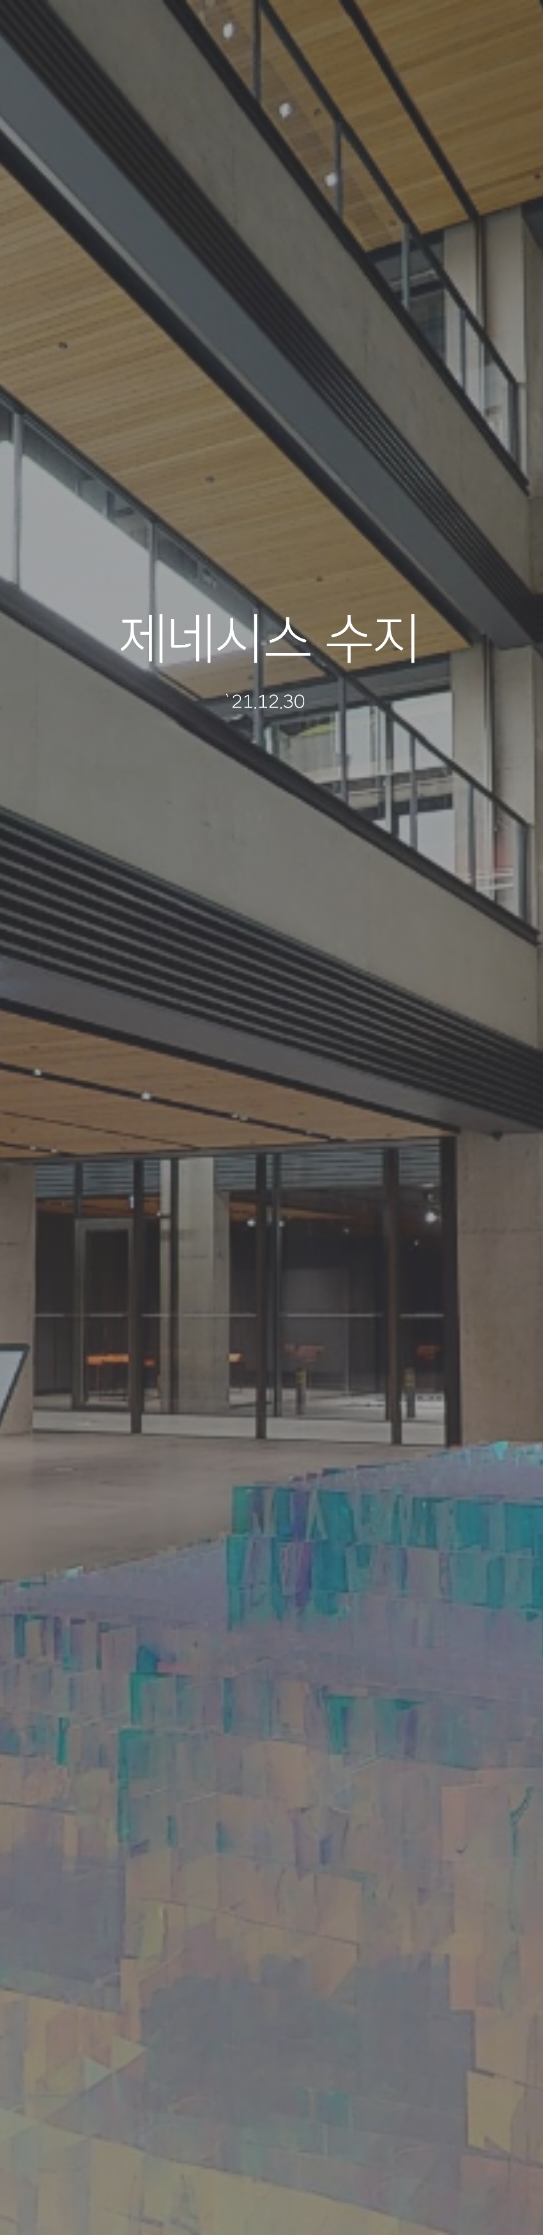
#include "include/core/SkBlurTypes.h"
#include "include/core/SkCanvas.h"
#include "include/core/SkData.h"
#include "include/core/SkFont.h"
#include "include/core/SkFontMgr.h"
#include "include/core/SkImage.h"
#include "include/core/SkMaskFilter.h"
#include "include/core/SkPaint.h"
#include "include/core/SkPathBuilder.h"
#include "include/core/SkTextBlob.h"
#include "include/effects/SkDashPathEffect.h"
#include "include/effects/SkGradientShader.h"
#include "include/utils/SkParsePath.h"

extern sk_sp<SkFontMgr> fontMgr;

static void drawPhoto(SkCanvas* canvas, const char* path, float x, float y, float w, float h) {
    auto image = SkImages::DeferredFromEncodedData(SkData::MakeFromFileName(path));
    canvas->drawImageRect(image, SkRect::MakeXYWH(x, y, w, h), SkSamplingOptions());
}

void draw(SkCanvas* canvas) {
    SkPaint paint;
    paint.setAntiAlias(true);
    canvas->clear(0xFFFFFFFF);
    drawPhoto(canvas, "assets/img1.png", 0, 0, 543, 2235);
    drawPhoto(canvas, "assets/img2.png", 120, 614, 295, 95);
}
